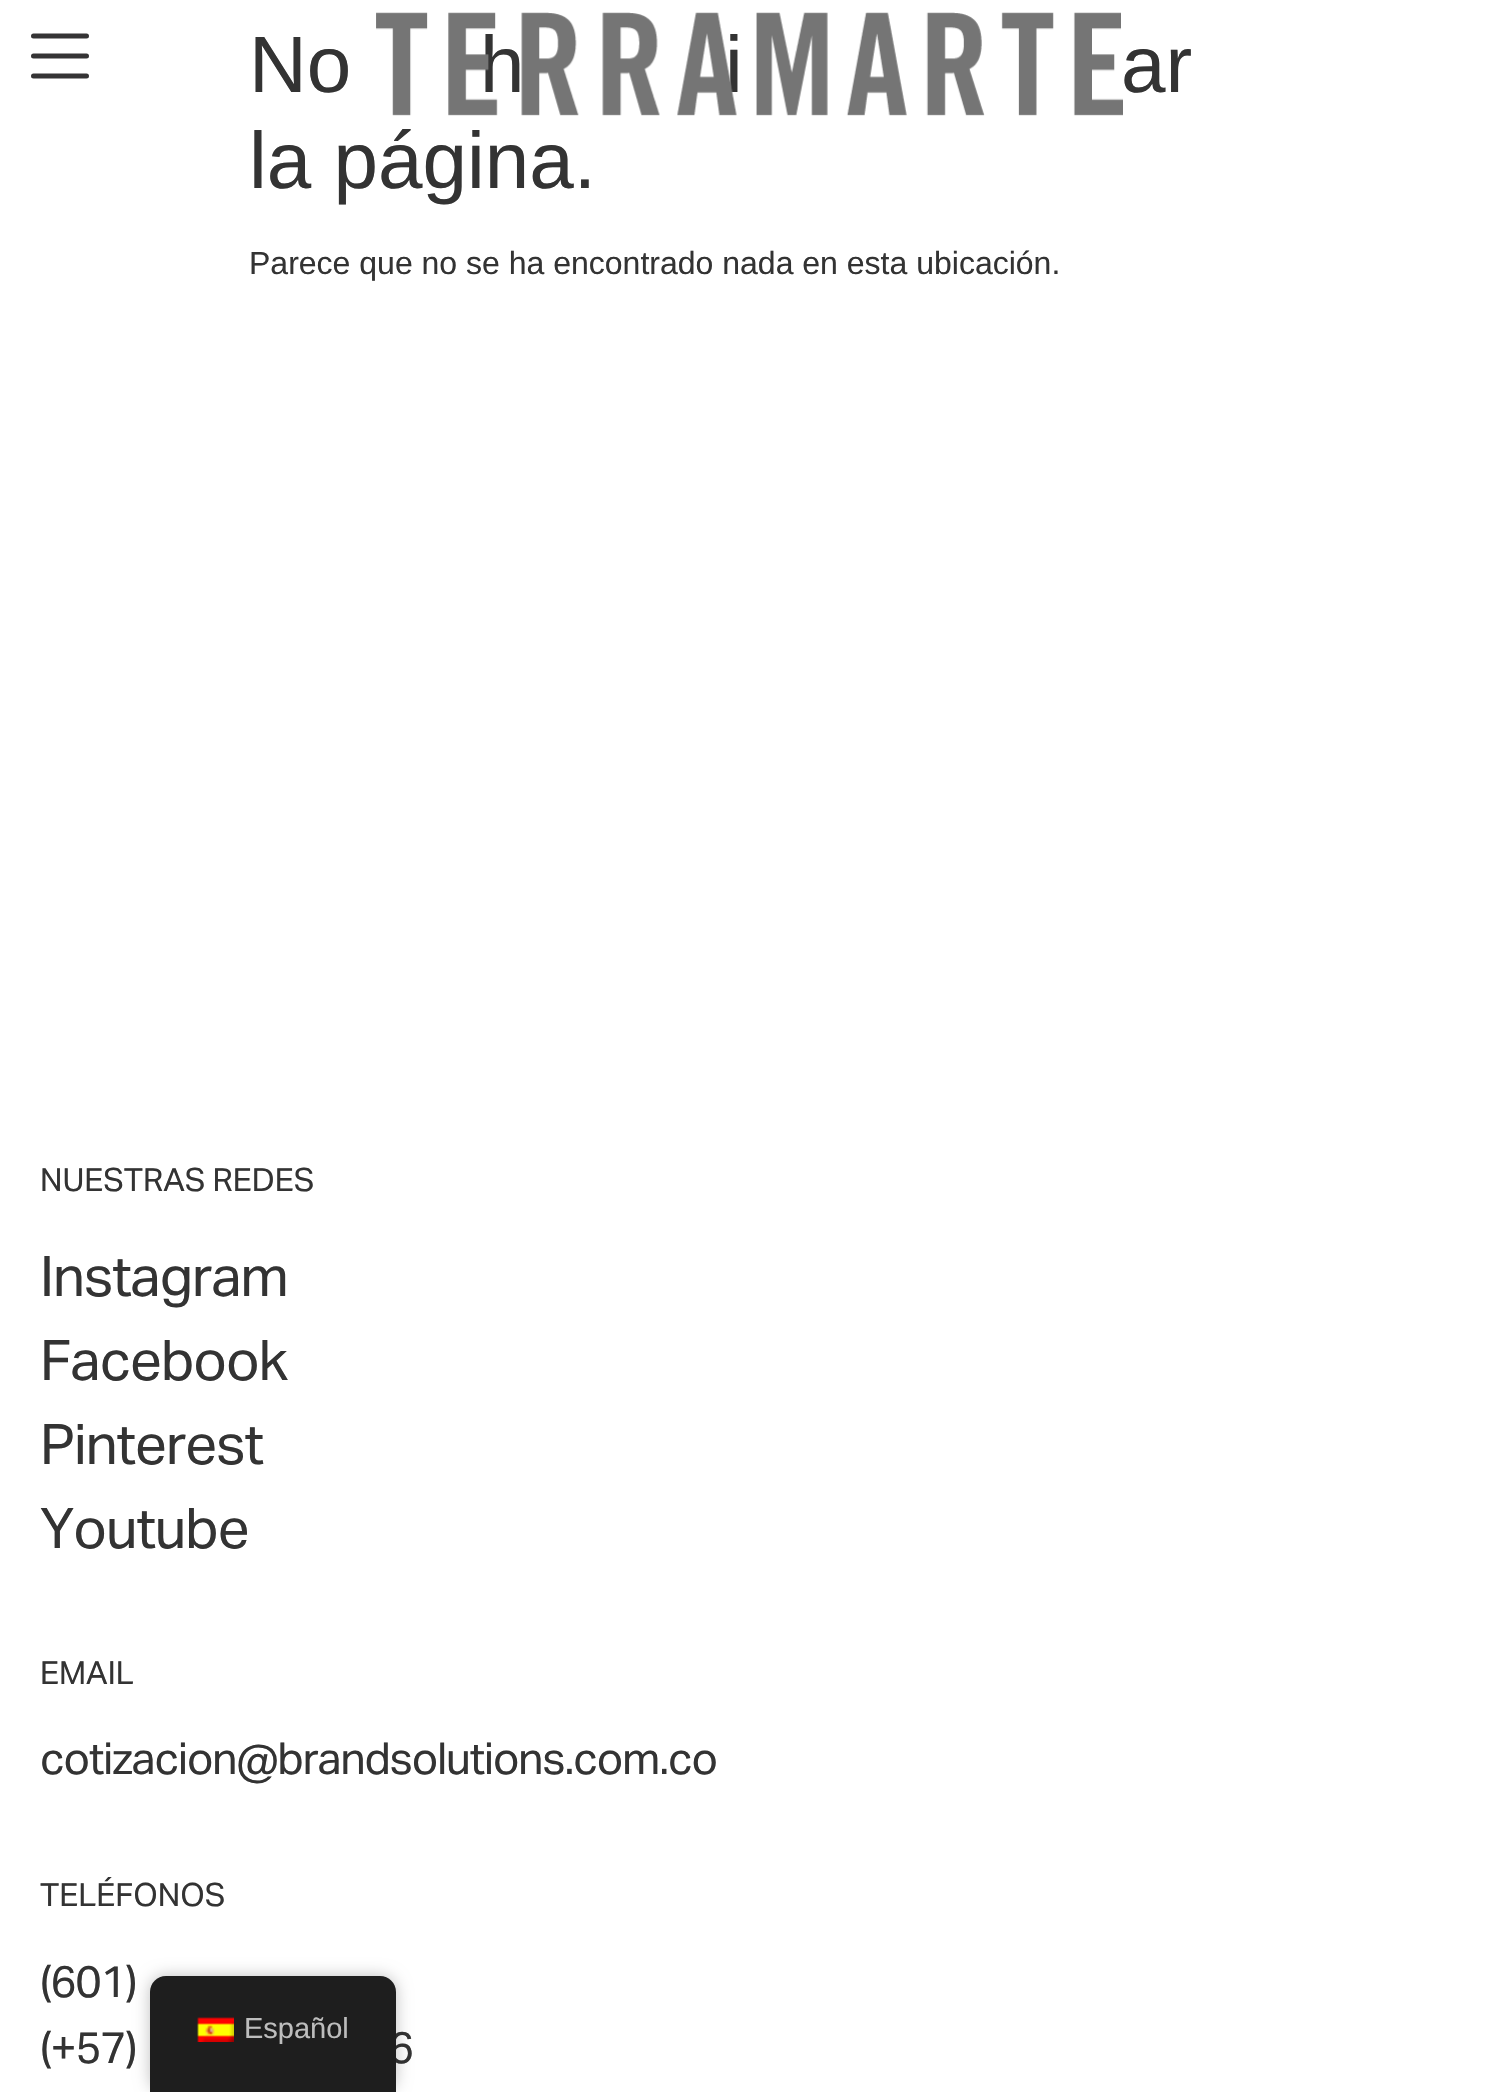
#include "include/core/SkBlurTypes.h"
#include "include/core/SkCanvas.h"
#include "include/core/SkData.h"
#include "include/core/SkFont.h"
#include "include/core/SkFontMgr.h"
#include "include/core/SkImage.h"
#include "include/core/SkMaskFilter.h"
#include "include/core/SkPaint.h"
#include "include/core/SkPathBuilder.h"
#include "include/core/SkTextBlob.h"
#include "include/effects/SkDashPathEffect.h"
#include "include/effects/SkGradientShader.h"
#include "include/utils/SkParsePath.h"

extern sk_sp<SkFontMgr> fontMgr;

static SkFont font(const char* family, int weight, float size, bool italic = false) {
    SkFontStyle style(weight, SkFontStyle::kNormal_Width,
        italic ? SkFontStyle::kItalic_Slant : SkFontStyle::kUpright_Slant);
    SkFont result(fontMgr->matchFamilyStyle(family, style), size);
    result.setSubpixel(true);
    return result;
}

static void drawLabel(SkCanvas* canvas, const char* s, float x, float y, const SkFont& font, SkColor color) {
    SkPaint ink(SkColor4f::FromColor(color));
    ink.setAntiAlias(true);
    canvas->drawString(s, x, y, font, ink);
}

static void drawTracked(SkCanvas* canvas, const char* s, float x, float y, const SkFont& font, const SkPaint& ink, float letter, float word) {
    std::vector<SkGlyphID> glyphs(font.countText(s, strlen(s), SkTextEncoding::kUTF8));
    std::vector<float> xs(glyphs.size());
    font.textToGlyphs(s, strlen(s), SkTextEncoding::kUTF8, glyphs);
    font.getXPos(glyphs, xs, x);
    float extra = 0;
    for (size_t i = 0; i < glyphs.size(); i++) {
        xs[i] += extra;
        extra += letter + word * (glyphs[i] == font.unicharToGlyph(' '));
    }
    canvas->drawTextBlob(SkTextBlob::MakeFromPosHGlyphs(glyphs, xs, y, font), 0, 0, ink);
}

static void drawPhoto(SkCanvas* canvas, const char* path, float x, float y, float w, float h) {
    auto image = SkImages::DeferredFromEncodedData(SkData::MakeFromFileName(path));
    canvas->drawImageRect(image, SkRect::MakeXYWH(x, y, w, h), SkSamplingOptions());
}

static SkPath parsePath(const char* data, bool evenOdd = false) {
    SkPath result = *SkParsePath::FromSVGString(data);
    if (evenOdd) result.setFillType(SkPathFillType::kEvenOdd);
    return result;
}

void draw(SkCanvas* canvas) {
    SkPaint paint;
    paint.setAntiAlias(true);
    canvas->clear(0xFFFFFFFF);
    paint.setStroke(true);
    paint.setStrokeWidth(5);
    paint.setStrokeCap(SkPaint::kRound_Cap);
    paint.setStrokeJoin(SkPaint::kRound_Join);
    paint.setColor(0xFF353435);
    canvas->drawPath(parsePath("M33.5 36H86.5M33.5 56H86.5M33.5 76H86.5"), paint);
    SkFont font1 = font("Liberation Sans", 400, 80);
    drawLabel(canvas, "h", 480, 92, font1, 0xFF333333);
    drawLabel(canvas, "i", 725, 92, font1, 0xFF333333);
    drawPhoto(canvas, "assets/img1.png", 376, 12, 747, 104);
    drawLabel(canvas, "No", 249, 92, font1, 0xFF333333);
    drawLabel(canvas, "ar", 1121, 92, font1, 0xFF333333);
    drawLabel(canvas, "la página.", 249, 188, font1, 0xFF333333);
    SkFont font2 = font("Liberation Sans", 400, 32);
    drawLabel(canvas, "Parece que no se ha encontrado nada en esta ubicación.", 249, 274, font2, 0xFF333333);
    SkFont font3 = font("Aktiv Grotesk", 400, 32);
    drawLabel(canvas, "NUESTRAS REDES", 40, 1191, font3, 0xFF333333);
    SkFont font4 = font("Aktiv Grotesk", 400, 56);
    paint.setStroke(false);
    paint.setColor(0xFF333333);
    drawTracked(canvas, "Instagram", 40, 1296, font4, paint, -1, 0);
    drawTracked(canvas, "Facebook", 40, 1380, font4, paint, -1, 0);
    drawTracked(canvas, "Pinterest", 40, 1464, font4, paint, -1, 0);
    drawTracked(canvas, "Youtube", 40, 1548, font4, paint, -1, 0);
    drawLabel(canvas, "EMAIL", 40, 1684, font3, 0xFF333333);
    SkFont font5 = font("Aktiv Grotesk", 400, 44);
    drawTracked(canvas, "cotizacion@brandsolutions.com.co", 40, 1774, font5, paint, -1, 0);
    drawLabel(canvas, "TELÉFONOS", 40, 1906, font3, 0xFF333333);
    drawTracked(canvas, "(601)", 40, 1997, font5, paint, -1, 0);
    drawTracked(canvas, "(+57)", 40, 2063, font5, paint, -1, 0);
    drawTracked(canvas, "6", 388, 2063, font5, paint, -1, 0);
    paint.setColor(0x40000000);
    paint.setMaskFilter(SkMaskFilter::MakeBlur(kNormal_SkBlurStyle, 8));
    canvas->drawRoundRect(SkRect::MakeXYWH(150, 1976, 246, 116), 16, 16, paint);
    paint.setMaskFilter(nullptr);
    paint.setColor(0xFF1E1E1E);
    canvas->drawPath(parsePath("M166 1976H380C389 1976 396 1983 396 1992V2092H150V1992C150 1983 157 1976 166 1976Z"), paint);
    drawPhoto(canvas, "assets/img2.png", 197, 2017, 37, 25);
    SkFont font6 = font("Liberation Sans", 400, 29);
    drawLabel(canvas, "Español", 244, 2038, font6, 0xFFBDBDBD);
}
